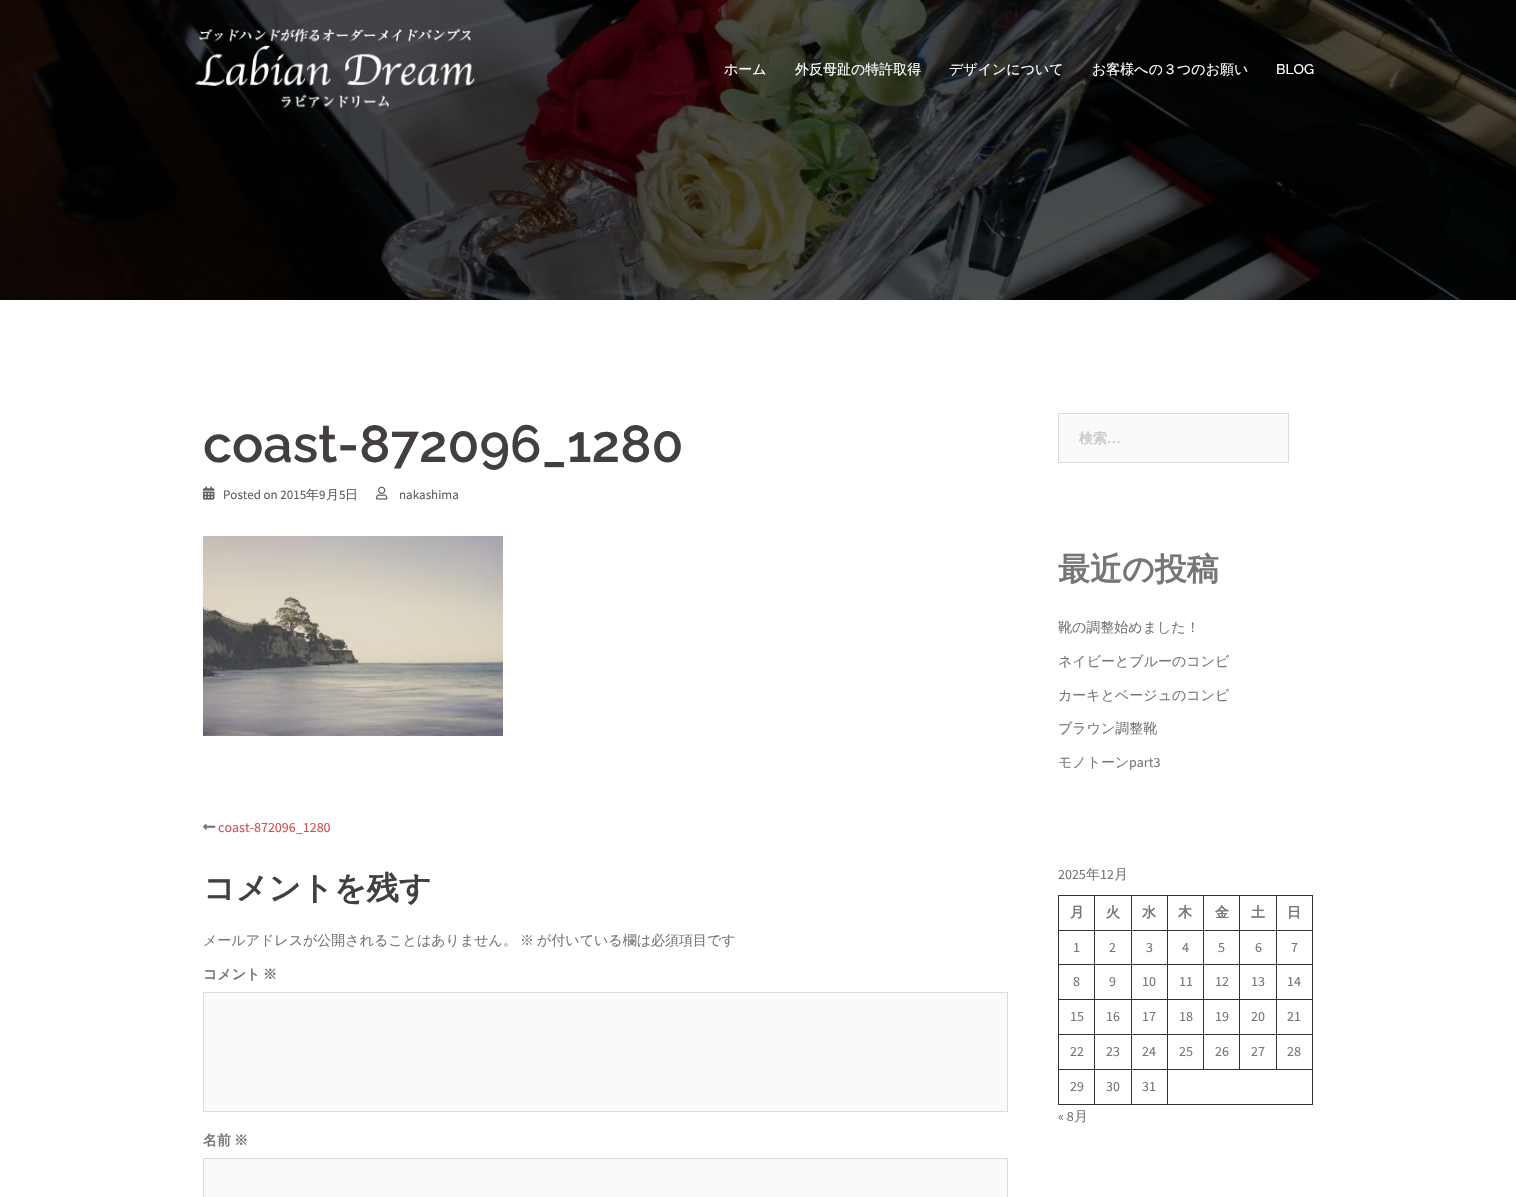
#include "include/core/SkBlurTypes.h"
#include "include/core/SkCanvas.h"
#include "include/core/SkData.h"
#include "include/core/SkFont.h"
#include "include/core/SkFontMgr.h"
#include "include/core/SkImage.h"
#include "include/core/SkMaskFilter.h"
#include "include/core/SkPaint.h"
#include "include/core/SkPathBuilder.h"
#include "include/core/SkTextBlob.h"
#include "include/effects/SkDashPathEffect.h"
#include "include/effects/SkGradientShader.h"
#include "include/utils/SkParsePath.h"

extern sk_sp<SkFontMgr> fontMgr;

static SkFont font(const char* family, int weight, float size, bool italic = false) {
    SkFontStyle style(weight, SkFontStyle::kNormal_Width,
        italic ? SkFontStyle::kItalic_Slant : SkFontStyle::kUpright_Slant);
    SkFont result(fontMgr->matchFamilyStyle(family, style), size);
    result.setSubpixel(true);
    return result;
}

static void drawLabel(SkCanvas* canvas, const char* s, float x, float y, const SkFont& font, SkColor color) {
    SkPaint ink(SkColor4f::FromColor(color));
    ink.setAntiAlias(true);
    canvas->drawString(s, x, y, font, ink);
}

static void fillRect(SkCanvas* canvas, float x, float y, float w, float h, SkColor color) {
    SkPaint ink(SkColor4f::FromColor(color));
    ink.setAntiAlias(true);
    canvas->drawRect(SkRect::MakeXYWH(x, y, w, h), ink);
}

static void drawPhoto(SkCanvas* canvas, const char* path, float x, float y, float w, float h) {
    auto image = SkImages::DeferredFromEncodedData(SkData::MakeFromFileName(path));
    canvas->drawImageRect(image, SkRect::MakeXYWH(x, y, w, h), SkSamplingOptions());
}

void draw(SkCanvas* canvas) {
    SkPaint paint;
    paint.setAntiAlias(true);
    canvas->clear(0xFFFFFFFF);
    drawPhoto(canvas, "assets/img1.png", 0, 0, 1516, 300);
    drawPhoto(canvas, "assets/img2.png", 195, 28, 280, 81);
    SkFont font1 = font("WenQuanYi Zen Hei", 500, 14);
    drawLabel(canvas, "ホーム", 724, 74, font1, 0xFFFFFFFF);
    drawLabel(canvas, "外反母趾の特許取得", 795, 74, font1, 0xFFFFFFFF);
    drawLabel(canvas, "デザインについて", 949, 74, font1, 0xFFFFFFFF);
    drawLabel(canvas, "お客様への３つのお願い", 1092, 74, font1, 0xFFFFFFFF);
    SkFont font2 = font("Raleway", 500, 14);
    drawLabel(canvas, "BLOG", 1276, 74, font2, 0xFFFFFFFF);
    SkFont font3 = font("Raleway", 600, 52);
    drawLabel(canvas, "coast-872096_1280", 203, 462, font3, 0xFF443F3F);
    drawPhoto(canvas, "assets/img3.png", 203, 486, 12, 14);
    SkFont font4 = font("Source Sans Pro", 400, 13);
    drawLabel(canvas, "Posted on 2015", 223, 499, font4, 0xFF5E5E5E);
    SkFont font5 = font("WenQuanYi Zen Hei", 500, 13);
    drawLabel(canvas, "年", 306, 499, font5, 0xFF5E5E5E);
    drawLabel(canvas, "9", 319, 499, font4, 0xFF5E5E5E);
    drawLabel(canvas, "月", 326, 499, font5, 0xFF5E5E5E);
    drawLabel(canvas, "5", 339, 499, font4, 0xFF5E5E5E);
    drawLabel(canvas, "日", 345, 499, font5, 0xFF5E5E5E);
    drawPhoto(canvas, "assets/img4.png", 376, 486, 12, 14);
    drawLabel(canvas, "nakashima", 399, 499, font4, 0xFF5E5E5E);
    drawPhoto(canvas, "assets/img5.png", 203, 536, 300, 200);
    drawPhoto(canvas, "assets/img6.png", 203, 823, 13, 7);
    SkFont font6 = font("Source Sans Pro", 400, 14);
    drawLabel(canvas, "coast-872096_1280", 218, 832, font6, 0xFFD65050);
    SkFont font7 = font("WenQuanYi Zen Hei", 700, 32);
    drawLabel(canvas, "コメントを残す", 203, 899, font7, 0xFF443F3F);
    drawLabel(canvas, "メールアドレスが公開されることはありません。", 203, 945, font1, 0xFF767676);
    drawLabel(canvas, "※", 520, 945, font1, 0xFF767676);
    drawLabel(canvas, "が付いている欄は必須項目です", 537, 945, font1, 0xFF767676);
    SkFont font8 = font("WenQuanYi Zen Hei", 700, 14);
    drawLabel(canvas, "コメント", 203, 979, font8, 0xFF767676);
    drawLabel(canvas, "※", 263, 979, font8, 0xFF767676);
    paint.setColor(0xFFFAFAFA);
    canvas->drawRect(SkRect::MakeXYWH(203.5f, 992.5f, 804, 119), paint);
    paint.setStroke(true);
    paint.setStrokeWidth(1);
    paint.setColor(0xFFDBDBDB);
    canvas->drawRect(SkRect::MakeXYWH(203.5f, 992.5f, 804, 119), paint);
    drawLabel(canvas, "名前", 203, 1145, font8, 0xFF767676);
    drawLabel(canvas, "※", 234, 1145, font8, 0xFF767676);
    paint.setStroke(false);
    paint.setColor(0xFFFAFAFA);
    canvas->drawRect(SkRect::MakeXYWH(203.5f, 1158.5f, 804, 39), paint);
    paint.setStroke(true);
    paint.setColor(0xFFDBDBDB);
    canvas->drawRect(SkRect::MakeXYWH(203.5f, 1158.5f, 804, 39), paint);
    paint.setStroke(false);
    paint.setColor(0xFFFAFAFA);
    canvas->drawRect(SkRect::MakeXYWH(1058.5f, 413.5f, 230, 49), paint);
    paint.setStroke(true);
    paint.setColor(0xFFDBDBDB);
    canvas->drawRect(SkRect::MakeXYWH(1058.5f, 413.5f, 230, 49), paint);
    drawLabel(canvas, "検索", 1079, 443, font8, 0xFFCACACA);
    SkFont font9 = font("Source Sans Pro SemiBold", 600, 14);
    drawLabel(canvas, "…", 1107, 443, font9, 0xFFCACACA);
    drawLabel(canvas, "最近の投稿", 1058, 580, font7, 0xFF767676);
    drawLabel(canvas, "靴の調整始めました！", 1058, 632, font1, 0xFF767676);
    drawLabel(canvas, "ネイビーとブルーのコンビ", 1058, 666, font1, 0xFF767676);
    drawLabel(canvas, "カーキとベージュのコンビ", 1058, 700, font1, 0xFF767676);
    drawLabel(canvas, "ブラウン調整靴", 1058, 733, font1, 0xFF767676);
    drawLabel(canvas, "モノトーン", 1058, 767, font1, 0xFF767676);
    drawLabel(canvas, "part3", 1129, 767, font6, 0xFF767676);
    drawLabel(canvas, "2025", 1058, 879, font6, 0xFF767676);
    drawLabel(canvas, "年", 1086, 879, font1, 0xFF767676);
    drawLabel(canvas, "12", 1100, 879, font6, 0xFF767676);
    drawLabel(canvas, "月", 1114, 879, font1, 0xFF767676);
    fillRect(canvas, 1276, 895, 37, 1, 0xFF333333);
    fillRect(canvas, 1276, 930, 37, 1, 0xFF333333);
    fillRect(canvas, 1276, 964, 37, 1, 0xFF333333);
    fillRect(canvas, 1276, 999, 37, 1, 0xFF333333);
    fillRect(canvas, 1276, 1034, 37, 1, 0xFF333333);
    fillRect(canvas, 1167, 1069, 146, 1, 0xFF333333);
    fillRect(canvas, 1276, 1034, 1, 36, 0xFF333333);
    fillRect(canvas, 1239, 1034, 38, 1, 0xFF333333);
    fillRect(canvas, 1276, 999, 1, 36, 0xFF333333);
    fillRect(canvas, 1239, 999, 38, 1, 0xFF333333);
    fillRect(canvas, 1276, 964, 1, 36, 0xFF333333);
    fillRect(canvas, 1239, 964, 38, 1, 0xFF333333);
    fillRect(canvas, 1276, 930, 1, 35, 0xFF333333);
    fillRect(canvas, 1239, 930, 38, 1, 0xFF333333);
    fillRect(canvas, 1276, 895, 1, 36, 0xFF333333);
    fillRect(canvas, 1239, 895, 38, 1, 0xFF333333);
    fillRect(canvas, 1239, 1034, 1, 36, 0xFF333333);
    fillRect(canvas, 1203, 1034, 37, 1, 0xFF333333);
    fillRect(canvas, 1239, 999, 1, 36, 0xFF333333);
    fillRect(canvas, 1203, 999, 37, 1, 0xFF333333);
    fillRect(canvas, 1239, 964, 1, 36, 0xFF333333);
    fillRect(canvas, 1203, 964, 37, 1, 0xFF333333);
    fillRect(canvas, 1239, 930, 1, 35, 0xFF333333);
    fillRect(canvas, 1203, 930, 37, 1, 0xFF333333);
    fillRect(canvas, 1239, 895, 1, 36, 0xFF333333);
    fillRect(canvas, 1203, 895, 37, 1, 0xFF333333);
    fillRect(canvas, 1203, 1034, 1, 36, 0xFF333333);
    fillRect(canvas, 1167, 1034, 37, 1, 0xFF333333);
    fillRect(canvas, 1203, 999, 1, 36, 0xFF333333);
    fillRect(canvas, 1167, 999, 37, 1, 0xFF333333);
    fillRect(canvas, 1203, 964, 1, 36, 0xFF333333);
    fillRect(canvas, 1167, 964, 37, 1, 0xFF333333);
    fillRect(canvas, 1203, 930, 1, 35, 0xFF333333);
    fillRect(canvas, 1167, 930, 37, 1, 0xFF333333);
    fillRect(canvas, 1203, 895, 1, 36, 0xFF333333);
    fillRect(canvas, 1167, 895, 37, 1, 0xFF333333);
    fillRect(canvas, 1312, 1069, 1, 36, 0xFF333333);
    fillRect(canvas, 1167, 1104, 146, 1, 0xFF333333);
    fillRect(canvas, 1167, 1069, 1, 36, 0xFF333333);
    fillRect(canvas, 1131, 1069, 37, 1, 0xFF333333);
    fillRect(canvas, 1167, 1034, 1, 36, 0xFF333333);
    fillRect(canvas, 1131, 1034, 37, 1, 0xFF333333);
    fillRect(canvas, 1167, 999, 1, 36, 0xFF333333);
    fillRect(canvas, 1131, 999, 37, 1, 0xFF333333);
    fillRect(canvas, 1167, 964, 1, 36, 0xFF333333);
    fillRect(canvas, 1131, 964, 37, 1, 0xFF333333);
    fillRect(canvas, 1167, 930, 1, 35, 0xFF333333);
    fillRect(canvas, 1131, 930, 37, 1, 0xFF333333);
    fillRect(canvas, 1167, 895, 1, 36, 0xFF333333);
    fillRect(canvas, 1131, 895, 37, 1, 0xFF333333);
    fillRect(canvas, 1131, 1104, 37, 1, 0xFF333333);
    fillRect(canvas, 1131, 1069, 1, 36, 0xFF333333);
    fillRect(canvas, 1094, 1069, 38, 1, 0xFF333333);
    fillRect(canvas, 1131, 1034, 1, 36, 0xFF333333);
    fillRect(canvas, 1094, 1034, 38, 1, 0xFF333333);
    fillRect(canvas, 1131, 999, 1, 36, 0xFF333333);
    fillRect(canvas, 1094, 999, 38, 1, 0xFF333333);
    fillRect(canvas, 1131, 964, 1, 36, 0xFF333333);
    fillRect(canvas, 1094, 964, 38, 1, 0xFF333333);
    fillRect(canvas, 1131, 930, 1, 35, 0xFF333333);
    fillRect(canvas, 1094, 930, 38, 1, 0xFF333333);
    fillRect(canvas, 1131, 895, 1, 36, 0xFF333333);
    fillRect(canvas, 1094, 895, 38, 1, 0xFF333333);
    fillRect(canvas, 1094, 1104, 38, 1, 0xFF333333);
    fillRect(canvas, 1094, 1069, 1, 36, 0xFF333333);
    fillRect(canvas, 1058, 1069, 37, 1, 0xFF333333);
    fillRect(canvas, 1094, 1034, 1, 36, 0xFF333333);
    fillRect(canvas, 1058, 1034, 37, 1, 0xFF333333);
    fillRect(canvas, 1094, 999, 1, 36, 0xFF333333);
    fillRect(canvas, 1058, 999, 37, 1, 0xFF333333);
    fillRect(canvas, 1094, 964, 1, 36, 0xFF333333);
    fillRect(canvas, 1058, 964, 37, 1, 0xFF333333);
    fillRect(canvas, 1094, 930, 1, 35, 0xFF333333);
    fillRect(canvas, 1058, 930, 37, 1, 0xFF333333);
    fillRect(canvas, 1094, 895, 1, 36, 0xFF333333);
    fillRect(canvas, 1058, 895, 37, 1, 0xFF333333);
    fillRect(canvas, 1058, 1104, 37, 1, 0xFF333333);
    fillRect(canvas, 1058, 1069, 1, 36, 0xFF333333);
    fillRect(canvas, 1058, 1034, 1, 36, 0xFF333333);
    fillRect(canvas, 1058, 999, 1, 36, 0xFF333333);
    fillRect(canvas, 1058, 964, 1, 36, 0xFF333333);
    fillRect(canvas, 1058, 930, 1, 35, 0xFF333333);
    fillRect(canvas, 1058, 895, 1, 36, 0xFF333333);
    drawLabel(canvas, "月", 1070, 917, font8, 0xFF767676);
    drawLabel(canvas, "火", 1106, 917, font8, 0xFF767676);
    drawLabel(canvas, "水", 1142, 917, font8, 0xFF767676);
    drawLabel(canvas, "木", 1178, 917, font8, 0xFF767676);
    drawLabel(canvas, "金", 1215, 917, font8, 0xFF767676);
    drawLabel(canvas, "土", 1251, 917, font8, 0xFF767676);
    fillRect(canvas, 1312, 1034, 1, 36, 0xFF333333);
    fillRect(canvas, 1312, 999, 1, 36, 0xFF333333);
    fillRect(canvas, 1312, 964, 1, 36, 0xFF333333);
    fillRect(canvas, 1312, 930, 1, 35, 0xFF333333);
    fillRect(canvas, 1312, 895, 1, 36, 0xFF333333);
    drawLabel(canvas, "日", 1287, 917, font8, 0xFF767676);
    drawLabel(canvas, "1", 1073, 952, font6, 0xFF767676);
    drawLabel(canvas, "2", 1109, 952, font6, 0xFF767676);
    drawLabel(canvas, "3", 1146, 952, font6, 0xFF767676);
    drawLabel(canvas, "4", 1182, 952, font6, 0xFF767676);
    drawLabel(canvas, "5", 1218, 952, font6, 0xFF767676);
    drawLabel(canvas, "6", 1255, 952, font6, 0xFF767676);
    drawLabel(canvas, "7", 1291, 952, font6, 0xFF767676);
    drawLabel(canvas, "8", 1073, 986, font6, 0xFF767676);
    drawLabel(canvas, "9", 1109, 986, font6, 0xFF767676);
    drawLabel(canvas, "10", 1142, 986, font6, 0xFF767676);
    drawLabel(canvas, "11", 1179, 986, font6, 0xFF767676);
    drawLabel(canvas, "12", 1215, 986, font6, 0xFF767676);
    drawLabel(canvas, "13", 1251, 986, font6, 0xFF767676);
    drawLabel(canvas, "14", 1287, 986, font6, 0xFF767676);
    drawLabel(canvas, "15", 1070, 1021, font6, 0xFF767676);
    drawLabel(canvas, "16", 1106, 1021, font6, 0xFF767676);
    drawLabel(canvas, "17", 1142, 1021, font6, 0xFF767676);
    drawLabel(canvas, "18", 1179, 1021, font6, 0xFF767676);
    drawLabel(canvas, "19", 1215, 1021, font6, 0xFF767676);
    drawLabel(canvas, "20", 1251, 1021, font6, 0xFF767676);
    drawLabel(canvas, "21", 1287, 1021, font6, 0xFF767676);
    drawLabel(canvas, "22", 1070, 1056, font6, 0xFF767676);
    drawLabel(canvas, "23", 1106, 1056, font6, 0xFF767676);
    drawLabel(canvas, "24", 1142, 1056, font6, 0xFF767676);
    drawLabel(canvas, "25", 1179, 1056, font6, 0xFF767676);
    drawLabel(canvas, "26", 1215, 1056, font6, 0xFF767676);
    drawLabel(canvas, "27", 1251, 1056, font6, 0xFF767676);
    drawLabel(canvas, "28", 1287, 1056, font6, 0xFF767676);
    drawLabel(canvas, "29", 1070, 1091, font6, 0xFF767676);
    drawLabel(canvas, "30", 1106, 1091, font6, 0xFF767676);
    drawLabel(canvas, "31", 1142, 1091, font6, 0xFF767676);
    drawLabel(canvas, "« 8", 1058, 1121, font6, 0xFF767676);
    drawLabel(canvas, "月", 1074, 1121, font1, 0xFF767676);
}
